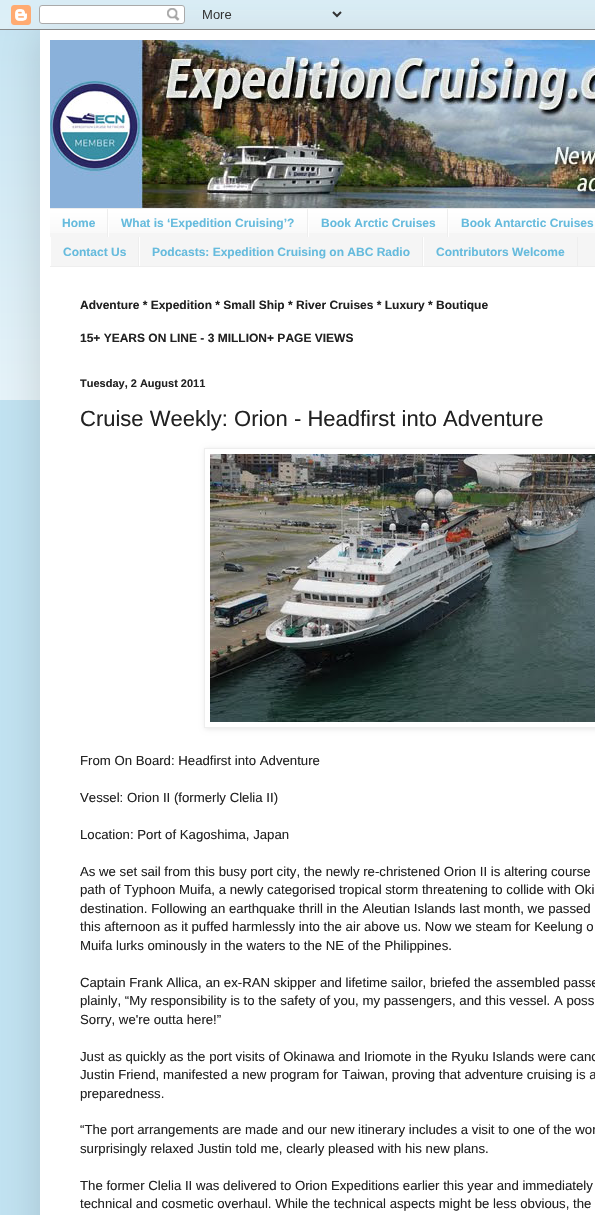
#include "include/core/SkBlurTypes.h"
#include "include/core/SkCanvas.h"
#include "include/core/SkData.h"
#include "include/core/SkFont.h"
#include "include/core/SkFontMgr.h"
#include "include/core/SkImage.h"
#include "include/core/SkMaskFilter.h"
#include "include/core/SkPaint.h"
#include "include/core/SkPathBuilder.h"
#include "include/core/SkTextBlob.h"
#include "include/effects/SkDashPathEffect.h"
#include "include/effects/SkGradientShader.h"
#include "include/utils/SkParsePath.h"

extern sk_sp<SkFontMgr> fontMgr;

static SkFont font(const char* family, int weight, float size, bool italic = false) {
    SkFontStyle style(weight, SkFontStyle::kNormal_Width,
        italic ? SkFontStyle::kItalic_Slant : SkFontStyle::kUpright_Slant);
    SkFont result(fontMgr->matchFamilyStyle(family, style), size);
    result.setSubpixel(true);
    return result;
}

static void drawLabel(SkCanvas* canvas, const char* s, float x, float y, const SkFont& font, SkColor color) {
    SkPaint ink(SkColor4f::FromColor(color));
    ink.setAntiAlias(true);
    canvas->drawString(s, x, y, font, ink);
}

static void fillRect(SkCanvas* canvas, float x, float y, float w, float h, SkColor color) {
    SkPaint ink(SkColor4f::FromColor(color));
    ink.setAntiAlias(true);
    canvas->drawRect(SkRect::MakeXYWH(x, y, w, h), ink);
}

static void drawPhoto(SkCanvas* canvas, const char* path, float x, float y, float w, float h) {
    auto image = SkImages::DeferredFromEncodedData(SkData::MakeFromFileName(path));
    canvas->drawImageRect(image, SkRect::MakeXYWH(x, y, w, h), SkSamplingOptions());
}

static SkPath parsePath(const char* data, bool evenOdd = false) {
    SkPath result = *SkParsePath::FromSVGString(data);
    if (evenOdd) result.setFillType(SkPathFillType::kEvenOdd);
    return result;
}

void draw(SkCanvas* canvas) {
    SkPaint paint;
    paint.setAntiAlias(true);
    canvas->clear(0xFFC2E3F2);
    drawPhoto(canvas, "assets/img2.png", 0, 10, 595, 390);
    paint.setColor(0x26000000);
    paint.setMaskFilter(SkMaskFilter::MakeBlur(kNormal_SkBlurStyle, 20));
    canvas->drawRect(SkRect::MakeXYWH(40, 30, 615, 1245), paint);
    paint.setMaskFilter(nullptr);
    drawPhoto(canvas, "assets/img1.png", 0, 0, 595, 30);
    fillRect(canvas, 40, 30, 555, 1185, 0xFFFFFFFF);
    drawPhoto(canvas, "assets/img3.png", 50, 40, 545, 168);
    fillRect(canvas, 50, 210, 545, 56, 0xFFF5F5F5);
    drawPhoto(canvas, "assets/img4.png", 50, 209, 545, 24);
    fillRect(canvas, 50, 208, 545, 1, 0xFFEEEEEE);
    fillRect(canvas, 50, 266, 545, 1, 0xFFEEEEEE);
    fillRect(canvas, 107, 209, 1, 28, 0xFFEEEEEE);
    SkFont font1 = font("Liberation Sans", 700, 12);
    drawLabel(canvas, "Home", 62, 227, font1, 0xFF66BBDD);
    fillRect(canvas, 307, 209, 1, 28, 0xFFEEEEEE);
    fillRect(canvas, 108, 220, 1, 17, 0xFFFFFFFF);
    drawLabel(canvas, "What is ‘Expedition Cruising’?", 121, 227, font1, 0xFF66BBDD);
    fillRect(canvas, 447, 209, 1, 28, 0xFFEEEEEE);
    fillRect(canvas, 308, 220, 1, 17, 0xFFFFFFFF);
    drawLabel(canvas, "Book Arctic Cruises", 321, 227, font1, 0xFF66BBDD);
    fillRect(canvas, 448, 220, 1, 17, 0xFFFFFFFF);
    drawLabel(canvas, "Book Antarctic Cruises", 461, 227, font1, 0xFF66BBDD);
    fillRect(canvas, 138, 237, 1, 29, 0xFFEEEEEE);
    fillRect(canvas, 50, 237, 1, 29, 0xFFFFFFFF);
    drawLabel(canvas, "Contact Us", 63, 256, font1, 0xFF66BBDD);
    fillRect(canvas, 422, 237, 1, 29, 0xFFEEEEEE);
    fillRect(canvas, 139, 237, 1, 29, 0xFFFFFFFF);
    drawLabel(canvas, "Podcasts: Expedition Cruising on ABC Radio", 152, 256, font1, 0xFF66BBDD);
    fillRect(canvas, 577, 237, 1, 29, 0xFFEEEEEE);
    fillRect(canvas, 423, 237, 1, 29, 0xFFFFFFFF);
    drawLabel(canvas, "Contributors Welcome", 436, 256, font1, 0xFF66BBDD);
    drawLabel(canvas, "Adventure * Expedition * Small Ship * River Cruises * Luxury * Boutique", 80, 309, font1, 0xFF222222);
    drawLabel(canvas, "15+ YEARS ON LINE - 3 MILLION+ PAGE VIEWS", 80, 342, font1, 0xFF222222);
    SkFont font2 = font("Liberation Sans", 700, 11);
    drawLabel(canvas, "Tuesday, 2 August 2011", 80, 387, font2, 0xFF222222);
    SkFont font3 = font("Liberation Sans", 400, 22);
    drawLabel(canvas, "Cruise Weekly: Orion - Headfirst into Adventure", 80, 426, font3, 0xFF222222);
    canvas->save();
    canvas->clipPath(parsePath("M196 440H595V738H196ZM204 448H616V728H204Z", true), true);
    paint.setColor(0x1A000000);
    paint.setMaskFilter(SkMaskFilter::MakeBlur(kNormal_SkBlurStyle, 2.5f));
    canvas->drawRect(SkRect::MakeXYWH(205, 449, 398, 280), paint);
    paint.setMaskFilter(nullptr);
    canvas->restore();
    paint.setStroke(true);
    paint.setStrokeWidth(1);
    paint.setColor(0xFFEEEEEE);
    canvas->drawRect(SkRect::MakeXYWH(204.5f, 448.5f, 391, 279), paint);
    drawPhoto(canvas, "assets/img5.png", 210, 454, 385, 268);
    SkFont font4 = font("Liberation Sans", 400, 13.2f);
    drawLabel(canvas, "From On Board: Headfirst into Adventure", 80, 765, font4, 0xFF222222);
    drawLabel(canvas, "Vessel: Orion II (formerly Clelia II)", 80, 802, font4, 0xFF222222);
    drawLabel(canvas, "Location: Port of Kagoshima, Japan", 80, 839, font4, 0xFF222222);
    drawLabel(canvas, "As we set sail from this busy port city, the newly re-christened Orion II is altering course", 80, 876, font4, 0xFF222222);
    drawLabel(canvas, "path of Typhoon Muifa, a newly categorised tropical storm threatening to collide with Oki", 80, 894, font4, 0xFF222222);
    drawLabel(canvas, "destination. Following an earthquake thrill in the Aleutian Islands last month, we passed", 80, 913, font4, 0xFF222222);
    drawLabel(canvas, "this afternoon as it puffed harmlessly into the air above us. Now we steam for Keelung o", 80, 931, font4, 0xFF222222);
    drawLabel(canvas, "Muifa lurks ominously in the waters to the NE of the Philippines.", 80, 950, font4, 0xFF222222);
    drawLabel(canvas, "Captain Frank Allica, an ex-RAN skipper and lifetime sailor, briefed the assembled passe", 80, 987, font4, 0xFF222222);
    drawLabel(canvas, "plainly, “My responsibility is to the safety of you, my passengers, and this vessel. A poss", 80, 1005, font4, 0xFF222222);
    drawLabel(canvas, "Sorry, we're outta here!”", 80, 1024, font4, 0xFF222222);
    drawLabel(canvas, "Just as quickly as the port visits of Okinawa and Iriomote in the Ryuku Islands were canc", 80, 1061, font4, 0xFF222222);
    drawLabel(canvas, "Justin Friend, manifested a new program for Taiwan, proving that adventure cruising is a", 80, 1079, font4, 0xFF222222);
    drawLabel(canvas, "preparedness.", 80, 1098, font4, 0xFF222222);
    drawLabel(canvas, "“The port arrangements are made and our new itinerary includes a visit to one of the wor", 80, 1134, font4, 0xFF222222);
    drawLabel(canvas, "surprisingly relaxed Justin told me, clearly pleased with his new plans.", 80, 1153, font4, 0xFF222222);
    drawLabel(canvas, "The former Clelia II was delivered to Orion Expeditions earlier this year and immediately", 80, 1190, font4, 0xFF222222);
    drawLabel(canvas, "technical and cosmetic overhaul. While the technical aspects might be less obvious, the", 80, 1208, font4, 0xFF222222);
}
